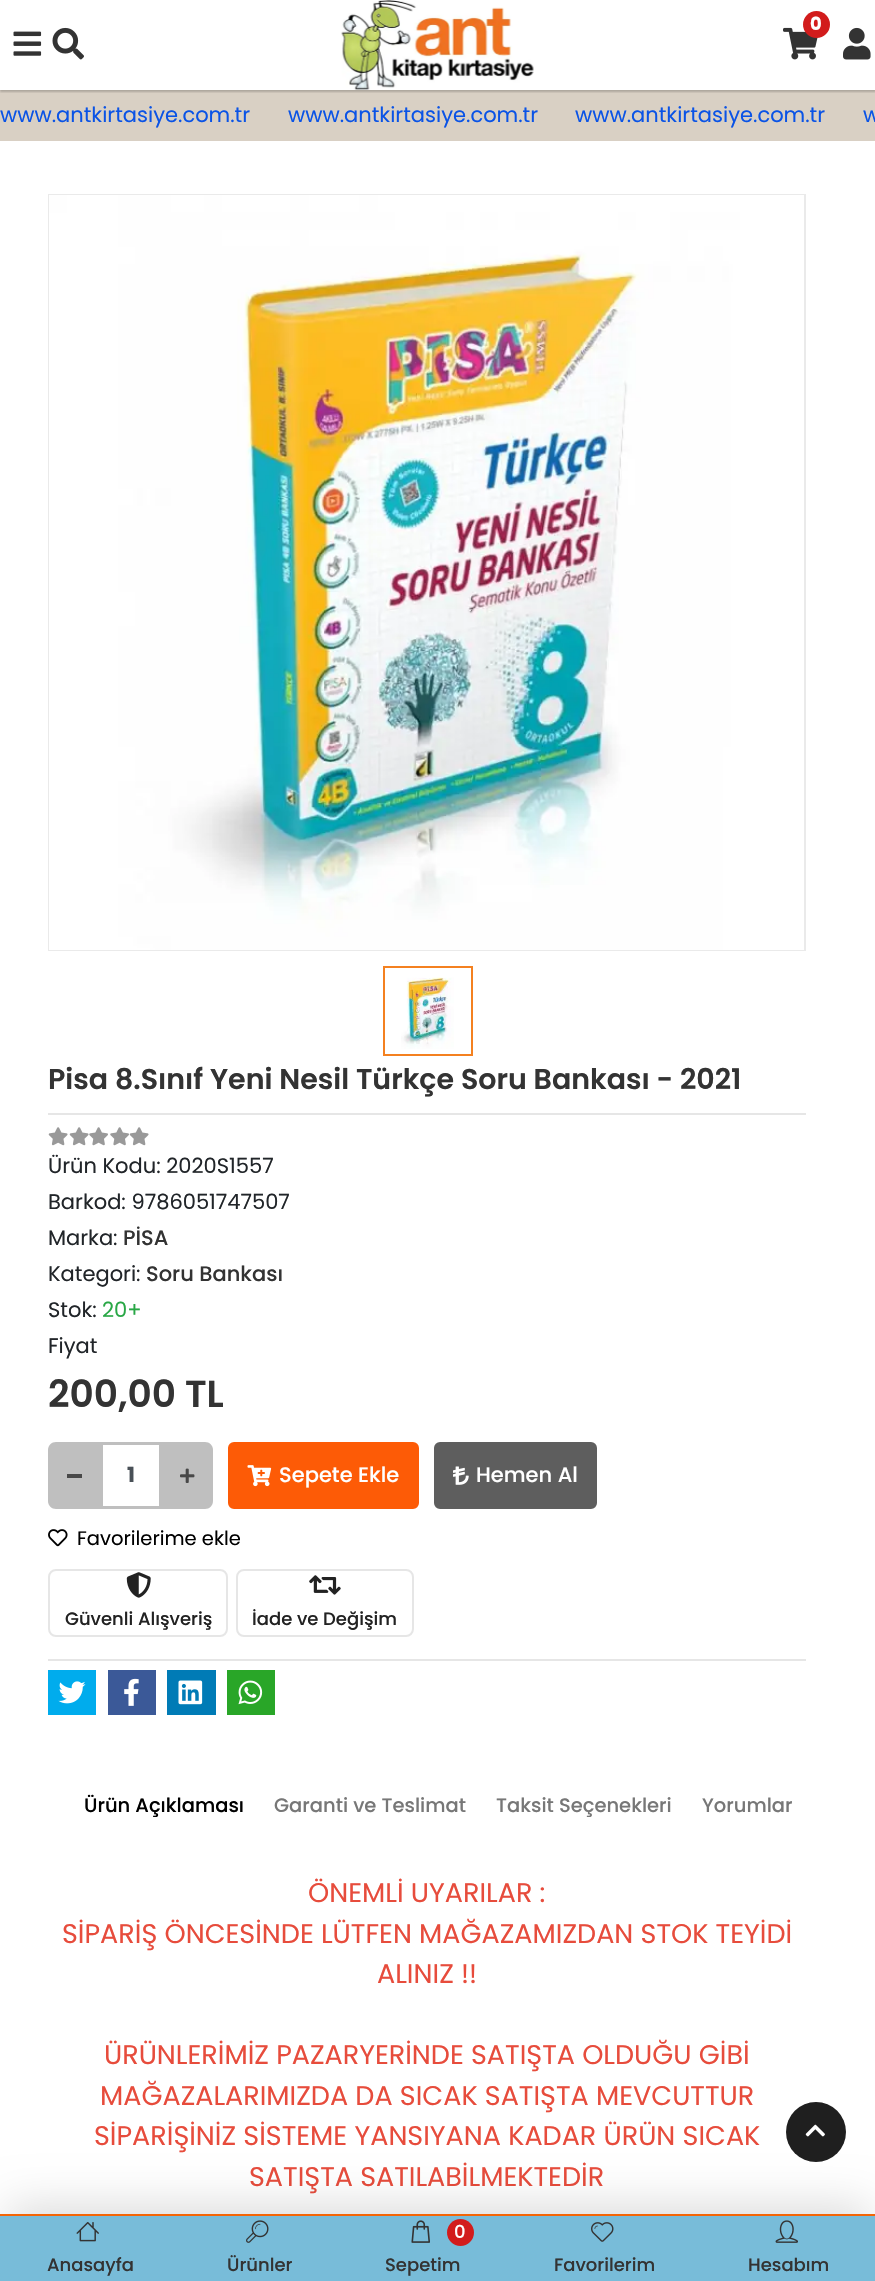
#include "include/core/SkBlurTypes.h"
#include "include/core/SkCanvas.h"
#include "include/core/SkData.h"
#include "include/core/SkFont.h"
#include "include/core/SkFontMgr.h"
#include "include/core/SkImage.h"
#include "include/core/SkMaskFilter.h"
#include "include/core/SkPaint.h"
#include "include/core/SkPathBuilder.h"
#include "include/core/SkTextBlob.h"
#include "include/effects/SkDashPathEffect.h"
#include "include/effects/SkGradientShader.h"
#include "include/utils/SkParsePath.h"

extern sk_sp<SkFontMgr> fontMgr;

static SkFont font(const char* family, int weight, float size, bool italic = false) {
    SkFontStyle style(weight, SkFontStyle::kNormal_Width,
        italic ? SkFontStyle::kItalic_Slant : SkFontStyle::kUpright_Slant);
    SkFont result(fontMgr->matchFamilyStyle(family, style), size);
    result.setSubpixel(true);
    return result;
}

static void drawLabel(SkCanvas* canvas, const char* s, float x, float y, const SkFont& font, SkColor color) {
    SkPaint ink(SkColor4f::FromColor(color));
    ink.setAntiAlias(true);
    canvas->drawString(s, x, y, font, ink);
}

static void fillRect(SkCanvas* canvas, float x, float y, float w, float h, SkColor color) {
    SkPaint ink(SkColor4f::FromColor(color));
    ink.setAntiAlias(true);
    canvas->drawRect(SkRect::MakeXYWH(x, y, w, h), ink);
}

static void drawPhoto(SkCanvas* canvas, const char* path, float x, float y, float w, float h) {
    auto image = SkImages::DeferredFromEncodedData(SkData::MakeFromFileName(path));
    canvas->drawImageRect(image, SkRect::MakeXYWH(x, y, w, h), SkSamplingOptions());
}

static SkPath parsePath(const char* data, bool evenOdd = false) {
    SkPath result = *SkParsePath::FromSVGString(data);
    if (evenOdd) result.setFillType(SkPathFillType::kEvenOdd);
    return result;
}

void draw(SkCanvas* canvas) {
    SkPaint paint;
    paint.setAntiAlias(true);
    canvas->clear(0xFFFFFFFF);
    fillRect(canvas, 0, 90, 875, 51, 0xFFD9D0C4);
    canvas->save();
    canvas->clipRect(SkRect::MakeXYWH(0, 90, 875, 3));
    paint.setColor(0x33000000);
    paint.setMaskFilter(SkMaskFilter::MakeBlur(kNormal_SkBlurStyle, 1));
    canvas->drawRect(SkRect::MakeXYWH(0, 2, 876, 90), paint);
    paint.setMaskFilter(nullptr);
    canvas->restore();
    drawPhoto(canvas, "assets/img1.png", 341, 0, 193, 90);
    drawPhoto(canvas, "assets/img2.png", 783, 27, 35, 33);
    paint.setColor(0xFFD21C1C);
    canvas->drawCircle(816.5f, 24.5f, 13.5f, paint);
    SkFont font1 = font("Poppins", 700, 18);
    drawLabel(canvas, "0", 810, 30, font1, 0xFFFFFFFF);
    drawPhoto(canvas, "assets/img3.png", 843, 27, 28, 33);
    drawPhoto(canvas, "assets/img4.png", 13, 31, 29, 25);
    drawPhoto(canvas, "assets/img5.png", 52, 27, 32, 33);
    SkFont font2 = font("Poppins", 400, 21);
    drawLabel(canvas, "www.antkirtasiye.com.tr", 0, 122, font2, 0xFF0A53E6);
    drawLabel(canvas, "www.antkirtasiye.com.tr", 288, 122, font2, 0xFF0A53E6);
    drawLabel(canvas, "www.antkirtasiye.com.tr", 575, 122, font2, 0xFF0A53E6);
    drawLabel(canvas, "w", 863, 122, font2, 0xFF0A53E6);
    paint.setStroke(true);
    paint.setStrokeWidth(2);
    paint.setColor(0xFFEAEAEA);
    canvas->drawRect(SkRect::MakeXYWH(49, 195, 756, 755), paint);
    drawPhoto(canvas, "assets/img6.png", 49, 195, 755, 755);
    paint.setColor(0xFFF48120);
    canvas->drawRect(SkRect::MakeXYWH(384, 967, 88, 88), paint);
    drawPhoto(canvas, "assets/img7.png", 401, 977, 53, 72);
    fillRect(canvas, 48, 1113, 758, 2, 0xFFE6E6E6);
    SkFont font3 = font("Poppins", 600, 28.5f);
    drawLabel(canvas, "Pisa 8.Sınıf Yeni Nesil Türkçe Soru Bankası - 2021", 48, 1089, font3, 0xFF333333);
    drawPhoto(canvas, "assets/img8.png", 48, 1127, 20, 19);
    drawPhoto(canvas, "assets/img8.png", 69, 1127, 20, 19);
    drawPhoto(canvas, "assets/img9.png", 89, 1127, 19, 19);
    drawPhoto(canvas, "assets/img9.png", 110, 1127, 19, 19);
    drawPhoto(canvas, "assets/img8.png", 129, 1127, 20, 19);
    drawLabel(canvas, "Ürün Kodu: 2020S1557", 48, 1173, font2, 0xFF212529);
    drawLabel(canvas, "Barkod: 9786051747507", 48, 1209, font2, 0xFF212529);
    drawLabel(canvas, "Marka:", 48, 1245, font2, 0xFF212529);
    SkFont font4 = font("Poppins", 500, 21);
    drawLabel(canvas, "PİSA", 123, 1245, font4, 0xFF333333);
    drawLabel(canvas, "Kategori:", 48, 1281, font2, 0xFF212529);
    drawLabel(canvas, "Soru Bankası", 146, 1281, font4, 0xFF333333);
    drawLabel(canvas, "Stok:", 48, 1317, font2, 0xFF212529);
    drawLabel(canvas, "20+", 102, 1317, font2, 0xFF28A745);
    drawLabel(canvas, "Fiyat", 48, 1353, font2, 0xFF212529);
    SkFont font5 = font("Poppins", 600, 37.5f);
    drawLabel(canvas, "200,00 TL", 48, 1407, font5, 0xFF333333);
    paint.setStroke(false);
    paint.setColor(0xFFBFBFBF);
    canvas->drawPath(parsePath("M56 1442H101V1509H56C51.5 1509 48 1505.5 48 1501V1450C48 1445.5 51.5 1442 56 1442Z"), paint);
    fillRect(canvas, 67, 1474, 15, 4, 0xFF484848);
    fillRect(canvas, 101, 1442, 60, 3, 0xFFBFBFBF);
    fillRect(canvas, 159, 1442, 2, 67, 0xFFBFBFBF);
    fillRect(canvas, 101, 1506, 60, 3, 0xFFBFBFBF);
    fillRect(canvas, 101, 1442, 2, 67, 0xFFBFBFBF);
    SkFont font6 = font("Poppins", 700, 21);
    drawLabel(canvas, "1", 127, 1482, font6, 0xFF495057);
    canvas->drawPath(parsePath("M161 1442H205C209.5 1442 213 1445.5 213 1450V1501C213 1505.5 209.5 1509 205 1509H161Z"), paint);
    drawPhoto(canvas, "assets/img10.png", 180, 1468, 15, 15);
    paint.setColor(0xFFFD5B06);
    canvas->drawRoundRect(SkRect::MakeXYWH(229, 1443, 189, 65), 5, 5, paint);
    paint.setStroke(true);
    canvas->drawRoundRect(SkRect::MakeXYWH(229, 1443, 189, 65), 5, 5, paint);
    drawPhoto(canvas, "assets/img11.png", 247, 1465, 25, 22);
    drawLabel(canvas, "Sepete Ekle", 279, 1482, font4, 0xFFFFFFFF);
    paint.setStroke(false);
    paint.setColor(0xFF5E5E5E);
    canvas->drawRoundRect(SkRect::MakeXYWH(435, 1443, 161, 65), 5, 5, paint);
    paint.setStroke(true);
    canvas->drawRoundRect(SkRect::MakeXYWH(435, 1443, 161, 65), 5, 5, paint);
    drawPhoto(canvas, "assets/img12.png", 453, 1466, 16, 19);
    drawLabel(canvas, "Hemen Al", 476, 1482, font4, 0xFFFFFFFF);
    drawPhoto(canvas, "assets/img13.png", 48, 1529, 20, 18);
    SkFont font7 = font("Poppins", 400, 19.5f);
    drawLabel(canvas, "Favorilerime ekle", 77, 1545, font7, 0xFF000000);
    paint.setColor(0xFFE6E6E6);
    canvas->drawRoundRect(SkRect::MakeXYWH(49, 1570, 178, 66), 7, 7, paint);
    drawPhoto(canvas, "assets/img14.png", 126, 1572, 25, 26);
    SkFont font8 = font("Poppins", 500, 18);
    drawLabel(canvas, "Güvenli Alışveriş", 65, 1625, font8, 0xFF222222);
    canvas->drawRoundRect(SkRect::MakeXYWH(237, 1570, 176, 66), 7, 7, paint);
    drawPhoto(canvas, "assets/img15.png", 309, 1575, 32, 20);
    drawLabel(canvas, "İade ve Değişim", 252, 1625, font8, 0xFF222222);
    fillRect(canvas, 48, 1659, 758, 2, 0xFFE6E6E6);
    fillRect(canvas, 48, 1670, 48, 45, 0xFF00ACED);
    drawPhoto(canvas, "assets/img16.png", 58, 1681, 28, 23);
    fillRect(canvas, 108, 1670, 48, 45, 0xFF3B5998);
    drawPhoto(canvas, "assets/img17.png", 124, 1678, 15, 28);
    fillRect(canvas, 167, 1670, 49, 45, 0xFF007BB6);
    drawPhoto(canvas, "assets/img18.png", 178, 1680, 25, 25);
    fillRect(canvas, 227, 1670, 48, 45, 0xFF29A628);
    drawPhoto(canvas, "assets/img19.png", 238, 1680, 25, 25);
    SkFont font9 = font("Poppins", 500, 19.5f);
    drawLabel(canvas, "Ürün Açıklaması", 84, 1812, font9, 0xFF000000);
    drawLabel(canvas, "Garanti ve Teslimat", 274, 1812, font9, 0xFF777777);
    drawLabel(canvas, "Taksit Seçenekleri", 496, 1812, font9, 0xFF777777);
    drawLabel(canvas, "Yorumlar", 702, 1812, font9, 0xFF777777);
    SkFont font10 = font("Poppins", 400, 27);
    drawLabel(canvas, "ÖNEMLİ UYARILAR :", 308, 1902, font10, 0xFFE74C3C);
    drawLabel(canvas, "SİPARİŞ ÖNCESİNDE LÜTFEN MAĞAZAMIZDAN STOK TEYİDİ", 62, 1943, font10, 0xFFE74C3C);
    drawLabel(canvas, "ALINIZ !!", 377, 1983, font10, 0xFFE74C3C);
    drawLabel(canvas, "ÜRÜNLERİMİZ PAZARYERİNDE SATIŞTA OLDUĞU GİBİ", 104, 2064, font10, 0xFFE74C3C);
    drawLabel(canvas, "MAĞAZALARIMIZDA DA SICAK SATIŞTA MEVCUTTUR", 100, 2105, font10, 0xFFE74C3C);
    drawLabel(canvas, "SİPARİŞİNİZ SİSTEME YANSIYANA KADAR ÜRÜN SICAK", 94, 2145, font10, 0xFFE74C3C);
    drawLabel(canvas, "SATIŞTA SATILABİLMEKTEDİR", 249, 2186, font10, 0xFFE74C3C);
    paint.setStroke(false);
    paint.setColor(0xFF1F1F1F);
    canvas->drawCircle(816, 2132, 30, paint);
    drawPhoto(canvas, "assets/img20.png", 805, 2124, 20, 13);
    paint.setColor(0x26000000);
    paint.setMaskFilter(SkMaskFilter::MakeBlur(kNormal_SkBlurStyle, 22.5f));
    canvas->drawRect(SkRect::MakeXYWH(8, 2207, 861, 52), paint);
    paint.setMaskFilter(nullptr);
    fillRect(canvas, 0, 2216, 875, 65, 0xFF78BCD9);
    fillRect(canvas, 0, 2214, 875, 2, 0xFFF46506);
    drawPhoto(canvas, "assets/img21.png", 76, 2222, 23, 20);
    drawLabel(canvas, "Anasayfa", 47, 2271, font8, 0xFF333333);
    drawPhoto(canvas, "assets/img22.png", 246, 2220, 23, 23);
    drawLabel(canvas, "Ürünler", 227, 2271, font8, 0xFF333333);
    drawPhoto(canvas, "assets/img23.png", 411, 2220, 19, 23);
    paint.setColor(0xFFD21C1C);
    canvas->drawCircle(460.5f, 2232.5f, 13.5f, paint);
    drawLabel(canvas, "0", 454, 2238, font8, 0xFFFFFFFF);
    drawLabel(canvas, "Sepetim", 385, 2271, font8, 0xFF333333);
    drawPhoto(canvas, "assets/img24.png", 591, 2222, 23, 20);
    drawLabel(canvas, "Favorilerim", 554, 2271, font8, 0xFF333333);
    drawPhoto(canvas, "assets/img25.png", 775, 2220, 23, 23);
    drawLabel(canvas, "Hesabım", 748, 2271, font8, 0xFF333333);
}
